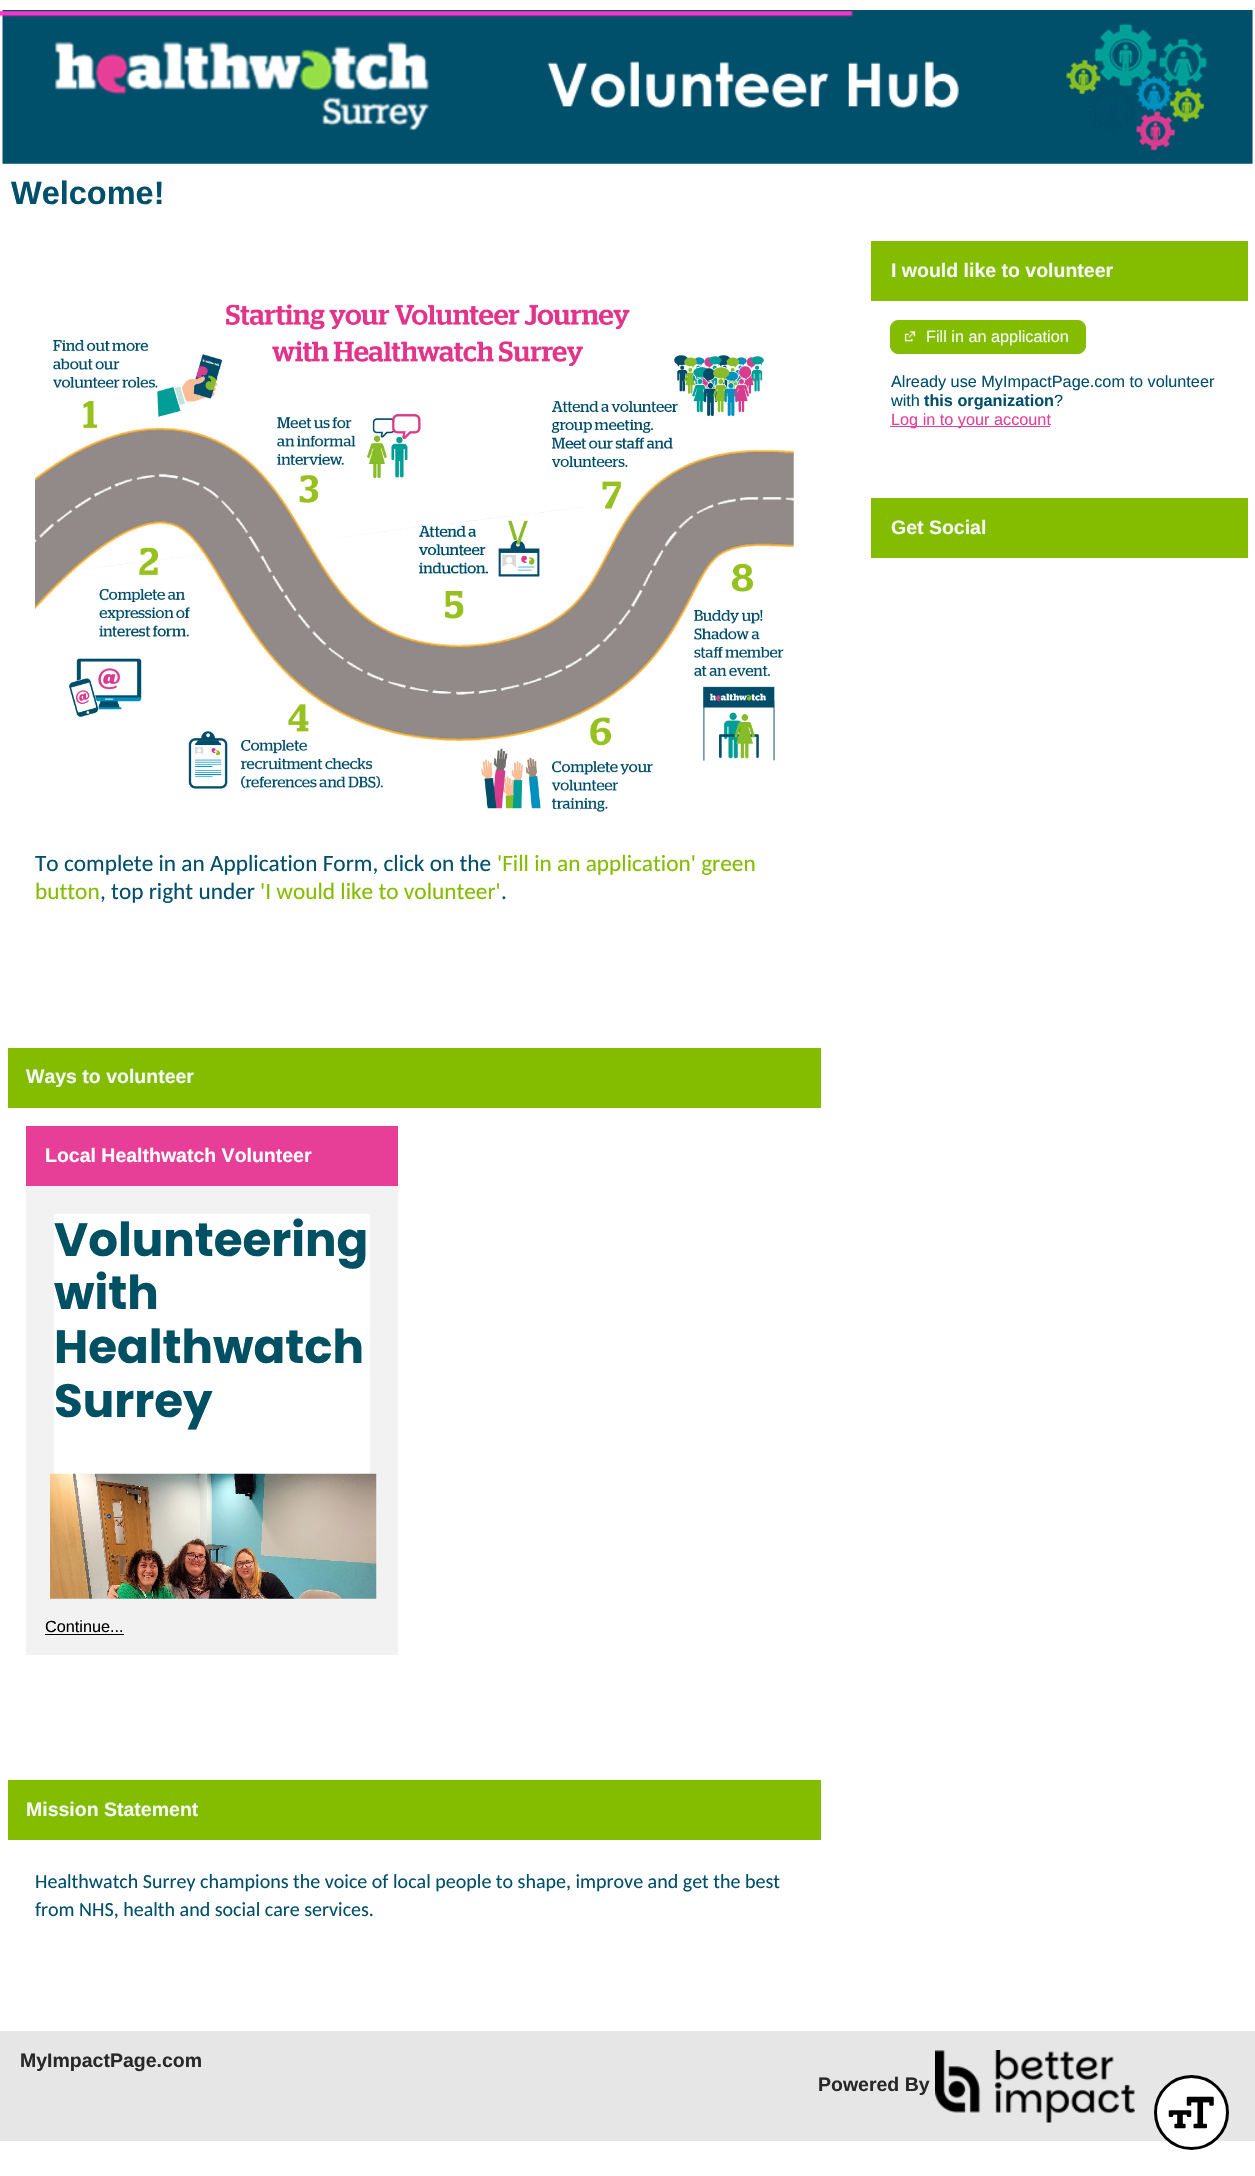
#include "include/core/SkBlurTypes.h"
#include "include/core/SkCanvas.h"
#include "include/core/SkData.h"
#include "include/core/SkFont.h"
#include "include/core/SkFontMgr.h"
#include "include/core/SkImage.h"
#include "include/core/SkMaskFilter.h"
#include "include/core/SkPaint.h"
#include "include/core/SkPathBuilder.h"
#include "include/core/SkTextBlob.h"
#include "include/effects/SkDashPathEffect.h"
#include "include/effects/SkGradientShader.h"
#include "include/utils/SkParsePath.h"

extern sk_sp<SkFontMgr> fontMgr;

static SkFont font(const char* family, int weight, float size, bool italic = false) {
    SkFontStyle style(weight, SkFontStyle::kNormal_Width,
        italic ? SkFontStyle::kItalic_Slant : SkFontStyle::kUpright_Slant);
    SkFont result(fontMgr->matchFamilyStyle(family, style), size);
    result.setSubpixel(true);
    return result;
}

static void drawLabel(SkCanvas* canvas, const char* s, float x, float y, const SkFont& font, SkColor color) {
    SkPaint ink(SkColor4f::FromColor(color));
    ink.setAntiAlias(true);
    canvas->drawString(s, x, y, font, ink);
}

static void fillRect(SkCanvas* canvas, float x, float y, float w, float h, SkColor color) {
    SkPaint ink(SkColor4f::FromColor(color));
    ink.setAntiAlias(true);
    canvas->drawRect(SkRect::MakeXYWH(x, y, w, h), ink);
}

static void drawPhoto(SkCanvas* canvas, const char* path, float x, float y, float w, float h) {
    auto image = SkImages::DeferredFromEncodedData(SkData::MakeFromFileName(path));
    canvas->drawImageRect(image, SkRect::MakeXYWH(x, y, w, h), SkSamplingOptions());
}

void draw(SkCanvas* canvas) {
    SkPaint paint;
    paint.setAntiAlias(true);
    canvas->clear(0xFFFFFFFF);
    drawPhoto(canvas, "assets/img1.png", 2, 10, 1251, 154);
    SkFont font1 = font("Liberation Sans", 700, 32.5f);
    drawLabel(canvas, "Welcome!", 11, 204, font1, 0xFF004F6B);
    fillRect(canvas, 871, 241, 377, 60, 0xFF84BD00);
    SkFont font2 = font("Liberation Sans", 700, 19.5f);
    drawLabel(canvas, "I would like to volunteer", 891, 277, font2, 0xFFF4F8FA);
    paint.setColor(0xFF84BD00);
    canvas->drawRoundRect(SkRect::MakeXYWH(890.5f, 320.5f, 195, 33), 7.5f, 7.5f, paint);
    paint.setStroke(true);
    paint.setStrokeWidth(1);
    canvas->drawRoundRect(SkRect::MakeXYWH(890.5f, 320.5f, 195, 33), 7.5f, 7.5f, paint);
    drawPhoto(canvas, "assets/img2.png", 904, 331, 12, 11);
    SkFont font3 = font("Liberation Sans", 400, 16.25f);
    drawLabel(canvas, "Fill in an application", 926, 342, font3, 0xFFF4F8FA);
    drawLabel(canvas, "Already use MyImpactPage.com to volunteer", 891, 387, font3, 0xFF004F6B);
    drawLabel(canvas, "with", 891, 406, font3, 0xFF004F6B);
    SkFont font4 = font("Liberation Sans", 700, 16.25f);
    drawLabel(canvas, "this organization", 924, 406, font4, 0xFF004F6B);
    drawLabel(canvas, "?", 1054, 406, font3, 0xFF004F6B);
    fillRect(canvas, 890, 426, 160, 1, 0xFFE73E97);
    drawLabel(canvas, "Log in to your account", 891, 425, font3, 0xFFE73E97);
    fillRect(canvas, 871, 498, 377, 60, 0xFF84BD00);
    drawLabel(canvas, "Get Social", 891, 534, font2, 0xFFF4F8FA);
    drawPhoto(canvas, "assets/img3.png", 35, 304, 759, 508);
    SkFont font5 = font("Carlito", 400, 23.3f);
    drawLabel(canvas, "To complete in an Application Form, click on the", 35, 871, font5, 0xFF004F6B);
    drawLabel(canvas, "'Fill in an application' green", 497, 871, font5, 0xFF84BD00);
    drawLabel(canvas, "button", 35, 899, font5, 0xFF84BD00);
    drawLabel(canvas, ", top right under", 100, 899, font5, 0xFF004F6B);
    drawLabel(canvas, "'I would like to volunteer'", 260, 899, font5, 0xFF84BD00);
    drawLabel(canvas, ".", 501, 899, font5, 0xFF004F6B);
    fillRect(canvas, 8, 1048, 813, 60, 0xFF84BD00);
    drawLabel(canvas, "Ways to volunteer", 26, 1083, font2, 0xFFF4F8FA);
    fillRect(canvas, 26, 1126, 372, 60, 0xFFE73E97);
    drawLabel(canvas, "Local Healthwatch Volunteer", 45, 1162, font2, 0xFFFFFFFF);
    fillRect(canvas, 26, 1186, 372, 469, 0xFFF2F2F2);
    drawPhoto(canvas, "assets/img4.png", 0, 11, 853, 6);
    fillRect(canvas, 54, 1214, 316, 260, 0xFFFFFFFF);
    SkFont font6 = font("Poppins", 700, 46.75f);
    drawLabel(canvas, "Volunteering", 54, 1256, font6, 0xFF005063);
    drawLabel(canvas, "with", 54, 1309, font6, 0xFF005063);
    drawLabel(canvas, "Healthwatch", 54, 1363, font6, 0xFF005063);
    drawLabel(canvas, "Surrey", 54, 1417, font6, 0xFF005063);
    drawPhoto(canvas, "assets/img5.png", 50, 1473, 327, 126);
    drawLabel(canvas, "Continue...", 45, 1632, font3, 0xFF000000);
    fillRect(canvas, 45, 1634, 79, 1, 0xFF000000);
    fillRect(canvas, 8, 1780, 813, 60, 0xFF84BD00);
    drawLabel(canvas, "Mission Statement", 26, 1816, font2, 0xFFF4F8FA);
    SkFont font7 = font("Carlito", 400, 20);
    drawLabel(canvas, "Healthwatch Surrey champions the voice of local people to shape, improve and get the best", 35, 1888, font7, 0xFF004F6B);
    drawLabel(canvas, "from NHS, health and social care services.", 35, 1916, font7, 0xFF004F6B);
    fillRect(canvas, 0, 2031, 1255, 110, 0xFFE6E6E6);
    drawLabel(canvas, "MyImpactPage.com", 20, 2067, font2, 0xFF282828);
    drawLabel(canvas, "Powered By", 818, 2091, font2, 0xFF282828);
    drawPhoto(canvas, "assets/img6.png", 935, 2050, 200, 73);
    paint.setStroke(false);
    paint.setColor(0xFFFFFFFF);
    canvas->drawCircle(1191.5f, 2112.5f, 36, paint);
    paint.setStroke(true);
    paint.setStrokeWidth(3);
    paint.setColor(0xFF000000);
    canvas->drawCircle(1191.5f, 2112.5f, 36, paint);
    drawPhoto(canvas, "assets/img7.png", 1168, 2096, 46, 33);
}
